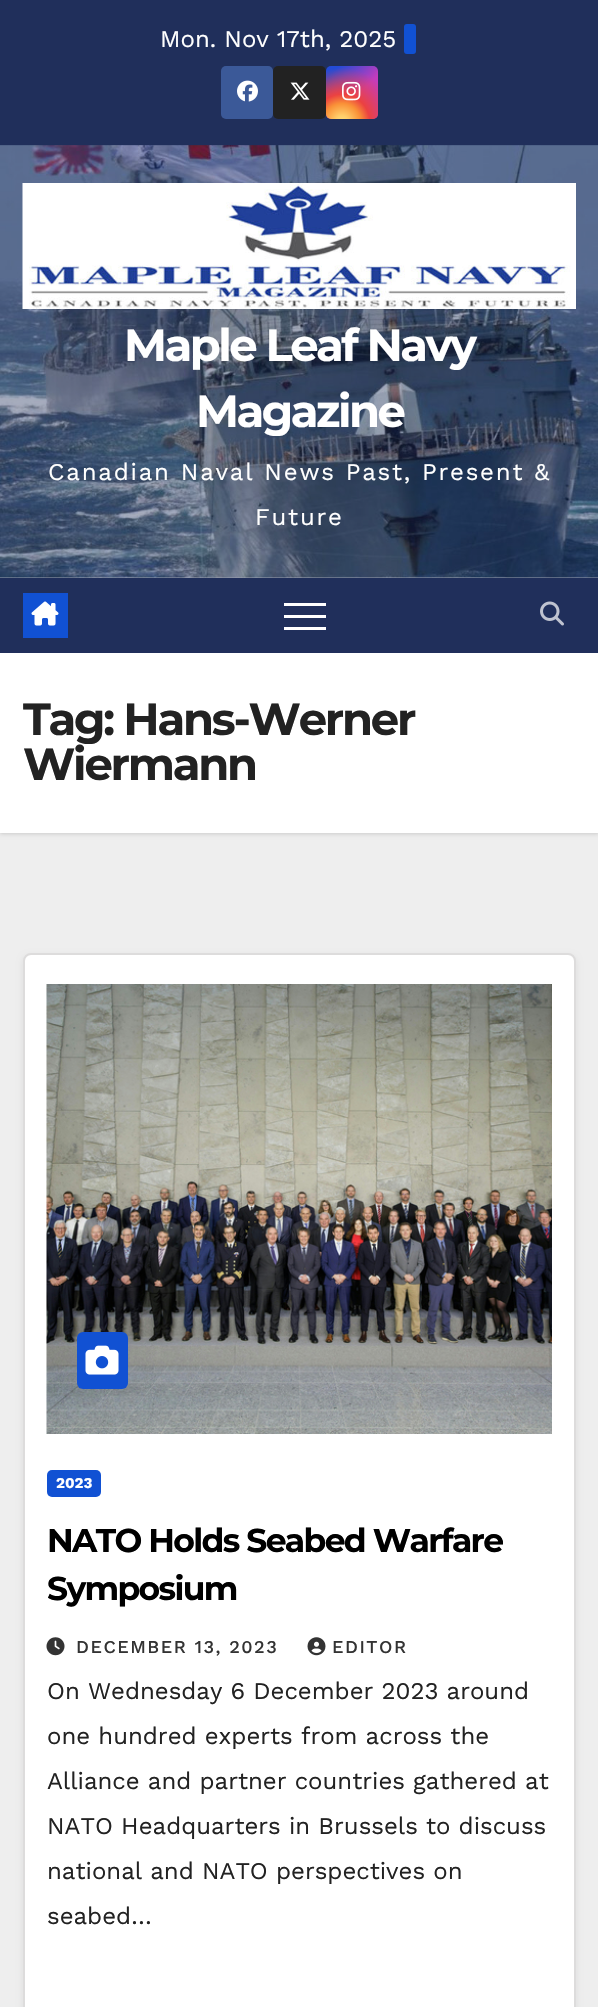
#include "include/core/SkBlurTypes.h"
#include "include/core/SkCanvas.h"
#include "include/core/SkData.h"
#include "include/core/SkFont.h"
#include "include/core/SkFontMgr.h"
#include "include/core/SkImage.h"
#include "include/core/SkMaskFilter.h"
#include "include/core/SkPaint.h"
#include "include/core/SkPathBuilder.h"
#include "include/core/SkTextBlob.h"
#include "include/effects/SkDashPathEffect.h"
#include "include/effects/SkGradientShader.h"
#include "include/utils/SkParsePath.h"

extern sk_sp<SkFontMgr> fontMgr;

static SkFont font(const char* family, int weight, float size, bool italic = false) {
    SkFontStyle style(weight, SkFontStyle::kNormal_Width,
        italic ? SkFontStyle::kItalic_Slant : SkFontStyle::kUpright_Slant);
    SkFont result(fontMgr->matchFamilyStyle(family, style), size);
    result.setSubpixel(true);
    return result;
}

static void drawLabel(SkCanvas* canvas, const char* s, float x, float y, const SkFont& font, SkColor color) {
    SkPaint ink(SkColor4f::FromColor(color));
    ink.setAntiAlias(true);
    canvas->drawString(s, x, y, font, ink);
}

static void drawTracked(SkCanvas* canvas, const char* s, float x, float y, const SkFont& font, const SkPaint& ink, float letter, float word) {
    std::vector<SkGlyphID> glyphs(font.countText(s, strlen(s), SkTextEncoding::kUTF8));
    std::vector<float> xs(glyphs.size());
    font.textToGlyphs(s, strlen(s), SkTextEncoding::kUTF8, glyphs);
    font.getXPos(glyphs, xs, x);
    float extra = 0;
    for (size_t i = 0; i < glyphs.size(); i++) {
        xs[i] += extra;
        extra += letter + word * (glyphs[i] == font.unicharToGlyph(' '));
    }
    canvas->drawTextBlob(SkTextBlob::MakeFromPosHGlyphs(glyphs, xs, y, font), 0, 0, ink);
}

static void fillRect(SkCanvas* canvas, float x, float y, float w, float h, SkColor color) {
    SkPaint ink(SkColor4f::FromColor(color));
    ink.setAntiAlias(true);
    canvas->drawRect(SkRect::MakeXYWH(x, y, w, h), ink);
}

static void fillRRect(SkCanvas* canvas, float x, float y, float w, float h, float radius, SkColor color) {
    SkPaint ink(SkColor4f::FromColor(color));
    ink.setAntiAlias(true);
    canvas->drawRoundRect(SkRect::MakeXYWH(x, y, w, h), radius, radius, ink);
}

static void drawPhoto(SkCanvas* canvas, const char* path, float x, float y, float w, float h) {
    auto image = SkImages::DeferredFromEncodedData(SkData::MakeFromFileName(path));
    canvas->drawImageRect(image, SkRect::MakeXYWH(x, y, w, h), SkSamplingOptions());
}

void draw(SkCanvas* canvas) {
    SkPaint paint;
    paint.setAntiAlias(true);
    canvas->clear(0xFFEEEEEE);
    fillRect(canvas, 0, 577, 598, 1, 0xFF9CA2B3);
    fillRect(canvas, 0, 0, 598, 146, 0xFF202F5B);
    SkFont font1 = font("Work Sans", 400, 24);
    drawLabel(canvas, "Mon. Nov 17th, 2025", 160, 47, font1, 0xFFFFFFFF);
    fillRRect(canvas, 404, 24, 12, 30, 3, 0xFF1151D3);
    fillRRect(canvas, 221, 66, 52, 53, 5, 0xFF3B5998);
    drawPhoto(canvas, "assets/img1.png", 237, 80, 21, 22);
    fillRRect(canvas, 273, 66, 53, 53, 5, 0xFF222222);
    drawPhoto(canvas, "assets/img2.png", 290, 82, 20, 18);
    {
        const SkColor colors[] = {0xFF234BD7, 0xFFC33CBE};
        const float stops[] = {0.12f, 0.58f};
        const SkPoint ends[] = {{326, 66}, {378, 119}};
        paint.setShader(SkGradientShader::MakeLinear(ends, colors, stops, 2, SkTileMode::kClamp));
        paint.setAlpha(255);
    }
    canvas->drawRoundRect(SkRect::MakeXYWH(326, 66, 52, 53), 5, 5, paint);
    {
        const SkColor colors[] = {0xFFFFE17D, 0xFFFFCD69, 0xFFFA9137, 0xFFEB4141, 0x00EB4141};
        const float stops[] = {0, 0.1f, 0.28f, 0.42f, 0.82f};
        paint.setShader(SkGradientShader::MakeRadial({342, 122}, 66, colors, stops, 5, SkTileMode::kClamp));
        paint.setAlpha(255);
    }
    canvas->drawRoundRect(SkRect::MakeXYWH(326, 66, 52, 53), 5, 5, paint);
    drawPhoto(canvas, "assets/img3.png", 342, 81, 19, 20);
    drawPhoto(canvas, "assets/img4.png", 0, 145, 598, 433);
    drawPhoto(canvas, "assets/img5.png", 22, 183, 554, 126);
    SkFont font2 = font("Montserrat", 700, 45);
    paint.setShader(nullptr);
    paint.setColor(0xFFFFFFFF);
    drawTracked(canvas, "Maple Leaf Navy", 124, 361, font2, paint, -2.5f, 0);
    drawTracked(canvas, "Magazine", 196, 427, font2, paint, -2.5f, 0);
    drawTracked(canvas, "Canadian Naval News Past, Present &", 48, 480, font1, paint, 1.8f, 0);
    drawTracked(canvas, "Future", 255, 525, font1, paint, 1.8f, 0);
    paint.setColor(0x26000000);
    paint.setMaskFilter(SkMaskFilter::MakeBlur(kNormal_SkBlurStyle, 2));
    canvas->drawRect(SkRect::MakeXYWH(0, 654, 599, 180), paint);
    paint.setMaskFilter(nullptr);
    fillRect(canvas, 0, 578, 598, 75, 0xFF202F5B);
    fillRect(canvas, 23, 593, 45, 45, 0xFF1151D3);
    drawPhoto(canvas, "assets/img6.png", 31, 601, 28, 25);
    fillRect(canvas, 284, 603, 42, 3, 0xFFFFFFFF);
    fillRect(canvas, 284, 615, 42, 3, 0xFFFFFFFF);
    fillRect(canvas, 284, 627, 42, 3, 0xFFFFFFFF);
    drawPhoto(canvas, "assets/img7.png", 540, 601, 24, 25);
    fillRect(canvas, 0, 653, 598, 180, 0xFFFFFFFF);
    paint.setColor(0xFF222222);
    drawTracked(canvas, "Tag: Hans-Werner", 23, 735, font2, paint, -2.25f, 0);
    drawTracked(canvas, "Wiermann", 23, 780, font2, paint, -2.25f, 0);
    paint.setColor(0x14000000);
    paint.setMaskFilter(SkMaskFilter::MakeBlur(kNormal_SkBlurStyle, 3));
    canvas->drawRoundRect(SkRect::MakeXYWH(23, 956, 553, 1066), 8, 8, paint);
    paint.setMaskFilter(nullptr);
    paint.setColor(0xFFFFFFFF);
    canvas->drawRoundRect(SkRect::MakeXYWH(24, 954, 551, 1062), 7, 7, paint);
    paint.setStroke(true);
    paint.setStrokeWidth(2);
    paint.setColor(0xFFDDDCDC);
    canvas->drawRoundRect(SkRect::MakeXYWH(24, 954, 551, 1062), 7, 7, paint);
    drawPhoto(canvas, "assets/img8.png", 46, 984, 506, 450);
    fillRRect(canvas, 77, 1332, 51, 57, 6, 0xFF1151D3);
    drawPhoto(canvas, "assets/img9.png", 85, 1345, 34, 30);
    fillRRect(canvas, 47, 1470, 54, 27, 5, 0xFF1151D3);
    SkFont font3 = font("Work Sans", 700, 15);
    drawLabel(canvas, "2023", 56, 1488, font3, 0xFFFFFFFF);
    SkFont font4 = font("Montserrat", 700, 33);
    paint.setStroke(false);
    paint.setColor(0xFF000000);
    drawTracked(canvas, "NATO Holds Seabed Warfare", 47, 1552, font4, paint, -1.65f, 0);
    drawTracked(canvas, "Symposium", 47, 1600, font4, paint, -1.65f, 0);
    drawPhoto(canvas, "assets/img10.png", 46, 1637, 19, 19);
    SkFont font5 = font("Work Sans", 500, 18);
    paint.setColor(0xFF333333);
    drawTracked(canvas, "DECEMBER 13, 2023", 76, 1653, font5, paint, 1.5f, 0);
    drawPhoto(canvas, "assets/img11.png", 307, 1637, 19, 19);
    drawTracked(canvas, "EDITOR", 332, 1653, font5, paint, 1.5f, 0);
    drawLabel(canvas, "On Wednesday 6 December 2023 around", 47, 1699, font1, 0xFF222222);
    drawLabel(canvas, "one hundred experts from across the", 47, 1744, font1, 0xFF222222);
    drawLabel(canvas, "Alliance and partner countries gathered at", 47, 1789, font1, 0xFF222222);
    drawLabel(canvas, "NATO Headquarters in Brussels to discuss", 47, 1834, font1, 0xFF222222);
    drawLabel(canvas, "national and NATO perspectives on", 47, 1879, font1, 0xFF222222);
    drawLabel(canvas, "seabed…", 47, 1924, font1, 0xFF222222);
}
